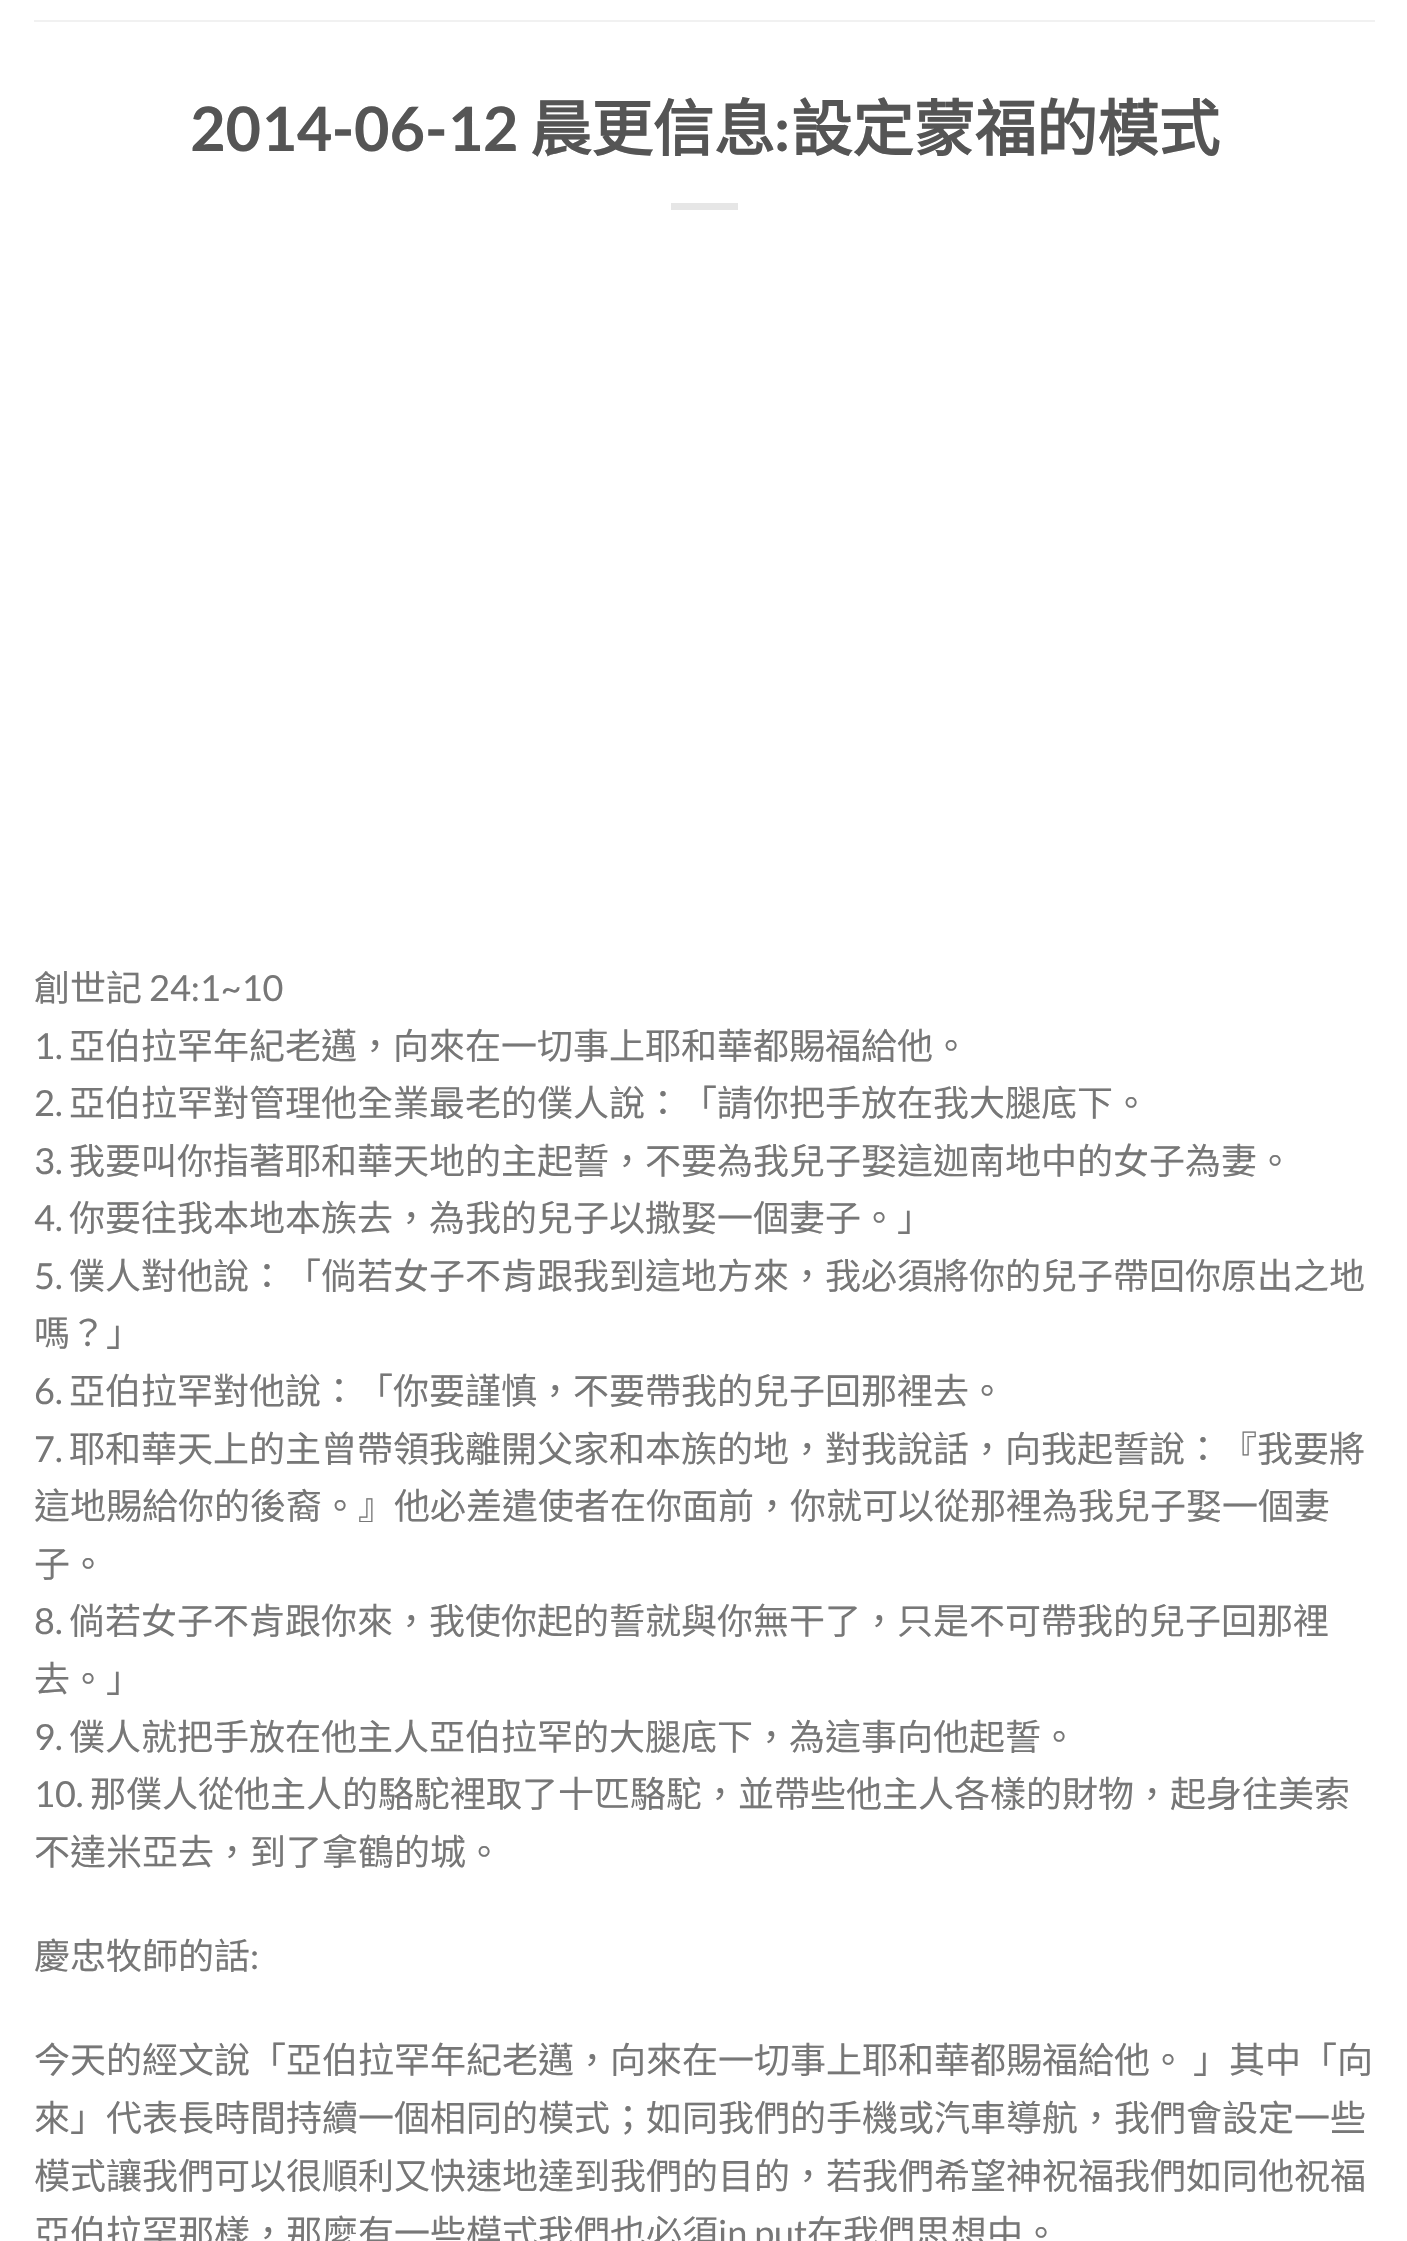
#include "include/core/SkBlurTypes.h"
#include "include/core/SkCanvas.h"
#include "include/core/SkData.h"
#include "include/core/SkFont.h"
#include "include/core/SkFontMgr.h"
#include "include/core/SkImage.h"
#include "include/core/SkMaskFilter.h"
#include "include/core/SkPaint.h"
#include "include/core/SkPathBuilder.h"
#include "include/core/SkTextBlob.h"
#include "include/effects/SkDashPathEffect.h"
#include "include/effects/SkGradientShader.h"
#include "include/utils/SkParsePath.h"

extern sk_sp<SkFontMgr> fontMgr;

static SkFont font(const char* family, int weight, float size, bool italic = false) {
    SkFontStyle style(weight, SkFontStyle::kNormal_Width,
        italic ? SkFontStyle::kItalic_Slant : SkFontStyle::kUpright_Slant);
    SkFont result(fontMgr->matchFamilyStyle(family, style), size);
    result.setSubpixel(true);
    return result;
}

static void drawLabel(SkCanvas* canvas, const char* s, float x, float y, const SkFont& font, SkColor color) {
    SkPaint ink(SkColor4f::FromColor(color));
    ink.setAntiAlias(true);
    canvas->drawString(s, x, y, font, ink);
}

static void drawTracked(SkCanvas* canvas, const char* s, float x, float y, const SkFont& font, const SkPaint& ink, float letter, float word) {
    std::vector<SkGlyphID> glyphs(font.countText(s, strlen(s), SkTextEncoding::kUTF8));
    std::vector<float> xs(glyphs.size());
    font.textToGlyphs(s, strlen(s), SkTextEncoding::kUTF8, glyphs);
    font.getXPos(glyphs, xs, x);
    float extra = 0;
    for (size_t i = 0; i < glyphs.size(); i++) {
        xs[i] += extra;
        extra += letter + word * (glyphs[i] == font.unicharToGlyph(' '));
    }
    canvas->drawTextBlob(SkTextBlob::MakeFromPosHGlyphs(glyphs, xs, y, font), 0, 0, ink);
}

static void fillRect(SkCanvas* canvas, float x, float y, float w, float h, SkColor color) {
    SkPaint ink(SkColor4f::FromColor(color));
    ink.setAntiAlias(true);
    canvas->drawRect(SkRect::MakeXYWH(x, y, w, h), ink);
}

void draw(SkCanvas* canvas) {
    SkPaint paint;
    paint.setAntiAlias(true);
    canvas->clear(0xFFFFFFFF);
    fillRect(canvas, 34, 20, 1341, 2, 0xFFF1F1F1);
    SkFont font1 = font("Lato", 700, 61.25f);
    drawLabel(canvas, "2014-06-12", 190, 151, font1, 0xFF555555);
    SkFont font2 = font("Noto Sans CJK TC", 700, 61.25f);
    drawLabel(canvas, "晨更信息", 530, 151, font2, 0xFF555555);
    drawLabel(canvas, ":", 774, 151, font1, 0xFF555555);
    drawLabel(canvas, "設定蒙福的模式", 791, 151, font2, 0xFF555555);
    fillRect(canvas, 671, 203, 67, 7, 0xFFE6E6E6);
    SkFont font3 = font("Noto Sans CJK TC", 400, 36);
    drawLabel(canvas, "創世記", 34, 1001, font3, 0xFF777777);
    SkFont font4 = font("Lato", 400, 36);
    drawLabel(canvas, "24:1~10", 149, 1001, font4, 0xFF777777);
    drawLabel(canvas, "1.", 34, 1059, font4, 0xFF777777);
    drawLabel(canvas, "亞伯拉罕年紀老邁，向來在一切事上耶和華都賜福給他。", 69, 1059, font3, 0xFF777777);
    drawLabel(canvas, "2.", 34, 1116, font4, 0xFF777777);
    drawLabel(canvas, "亞伯拉罕對管理他全業最老的僕人說：「請你把手放在我大腿底下。", 69, 1116, font3, 0xFF777777);
    drawLabel(canvas, "3.", 34, 1174, font4, 0xFF777777);
    drawLabel(canvas, "我要叫你指著耶和華天地的主起誓，不要為我兒子娶這迦南地中的女子為妻。", 69, 1174, font3, 0xFF777777);
    drawLabel(canvas, "4.", 34, 1231, font4, 0xFF777777);
    drawLabel(canvas, "你要往我本地本族去，為我的兒子以撒娶一個妻子。」", 69, 1231, font3, 0xFF777777);
    drawLabel(canvas, "5.", 34, 1289, font4, 0xFF777777);
    drawLabel(canvas, "僕人對他說：「倘若女子不肯跟我到這地方來，我必須將你的兒子帶回你原出之地", 69, 1289, font3, 0xFF777777);
    drawLabel(canvas, "嗎？」", 34, 1346, font3, 0xFF777777);
    drawLabel(canvas, "6.", 34, 1404, font4, 0xFF777777);
    drawLabel(canvas, "亞伯拉罕對他說：「你要謹慎，不要帶我的兒子回那裡去。", 69, 1404, font3, 0xFF777777);
    drawLabel(canvas, "7.", 34, 1462, font4, 0xFF777777);
    drawLabel(canvas, "耶和華天上的主曾帶領我離開父家和本族的地，對我說話，向我起誓說：『我要將", 69, 1462, font3, 0xFF777777);
    drawLabel(canvas, "這地賜給你的後裔。』他必差遣使者在你面前，你就可以從那裡為我兒子娶一個妻", 34, 1519, font3, 0xFF777777);
    drawLabel(canvas, "子。", 34, 1577, font3, 0xFF777777);
    drawLabel(canvas, "8.", 34, 1634, font4, 0xFF777777);
    drawLabel(canvas, "倘若女子不肯跟你來，我使你起的誓就與你無干了，只是不可帶我的兒子回那裡", 69, 1634, font3, 0xFF777777);
    drawLabel(canvas, "去。」", 34, 1692, font3, 0xFF777777);
    drawLabel(canvas, "9.", 34, 1750, font4, 0xFF777777);
    drawLabel(canvas, "僕人就把手放在他主人亞伯拉罕的大腿底下，為這事向他起誓。", 69, 1750, font3, 0xFF777777);
    drawLabel(canvas, "10.", 34, 1807, font4, 0xFF777777);
    drawLabel(canvas, "那僕人從他主人的駱駝裡取了十匹駱駝，並帶些他主人各樣的財物，起身往美索", 90, 1807, font3, 0xFF777777);
    drawLabel(canvas, "不達米亞去，到了拿鶴的城。", 34, 1865, font3, 0xFF777777);
    drawLabel(canvas, "慶忠牧師的話", 34, 1969, font3, 0xFF777777);
    drawLabel(canvas, ":", 250, 1969, font4, 0xFF777777);
    paint.setColor(0xFF777777);
    drawTracked(canvas, "今天的經文說「亞伯拉罕年紀老邁，向來在一切事上耶和華都賜福給他。 」其中「向", 34, 2073, font3, paint, 0, -1);
    drawLabel(canvas, "來」代表長時間持續一個相同的模式；如同我們的手機或汽車導航，我們會設定一些", 34, 2131, font3, 0xFF777777);
    drawLabel(canvas, "模式讓我們可以很順利又快速地達到我們的目的，若我們希望神祝福我們如同他祝福", 34, 2189, font3, 0xFF777777);
    drawLabel(canvas, "亞伯拉罕那樣，那麼有一些模式我們也必須", 34, 2246, font3, 0xFF777777);
    drawLabel(canvas, "in put", 718, 2246, font4, 0xFF777777);
    drawLabel(canvas, "在我們思想中。", 807, 2246, font3, 0xFF777777);
}
